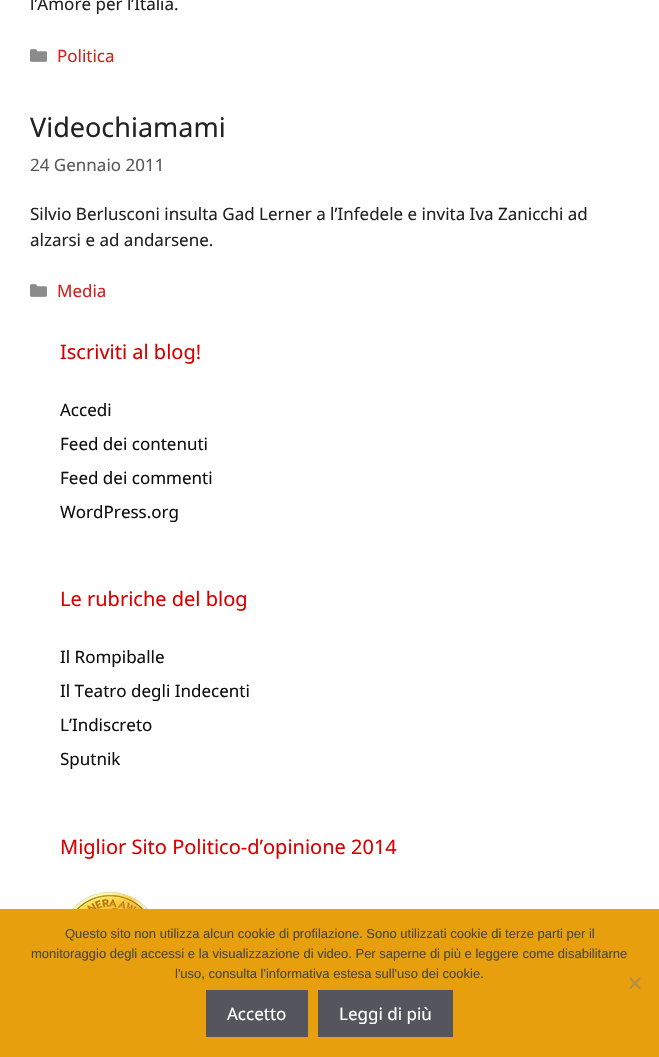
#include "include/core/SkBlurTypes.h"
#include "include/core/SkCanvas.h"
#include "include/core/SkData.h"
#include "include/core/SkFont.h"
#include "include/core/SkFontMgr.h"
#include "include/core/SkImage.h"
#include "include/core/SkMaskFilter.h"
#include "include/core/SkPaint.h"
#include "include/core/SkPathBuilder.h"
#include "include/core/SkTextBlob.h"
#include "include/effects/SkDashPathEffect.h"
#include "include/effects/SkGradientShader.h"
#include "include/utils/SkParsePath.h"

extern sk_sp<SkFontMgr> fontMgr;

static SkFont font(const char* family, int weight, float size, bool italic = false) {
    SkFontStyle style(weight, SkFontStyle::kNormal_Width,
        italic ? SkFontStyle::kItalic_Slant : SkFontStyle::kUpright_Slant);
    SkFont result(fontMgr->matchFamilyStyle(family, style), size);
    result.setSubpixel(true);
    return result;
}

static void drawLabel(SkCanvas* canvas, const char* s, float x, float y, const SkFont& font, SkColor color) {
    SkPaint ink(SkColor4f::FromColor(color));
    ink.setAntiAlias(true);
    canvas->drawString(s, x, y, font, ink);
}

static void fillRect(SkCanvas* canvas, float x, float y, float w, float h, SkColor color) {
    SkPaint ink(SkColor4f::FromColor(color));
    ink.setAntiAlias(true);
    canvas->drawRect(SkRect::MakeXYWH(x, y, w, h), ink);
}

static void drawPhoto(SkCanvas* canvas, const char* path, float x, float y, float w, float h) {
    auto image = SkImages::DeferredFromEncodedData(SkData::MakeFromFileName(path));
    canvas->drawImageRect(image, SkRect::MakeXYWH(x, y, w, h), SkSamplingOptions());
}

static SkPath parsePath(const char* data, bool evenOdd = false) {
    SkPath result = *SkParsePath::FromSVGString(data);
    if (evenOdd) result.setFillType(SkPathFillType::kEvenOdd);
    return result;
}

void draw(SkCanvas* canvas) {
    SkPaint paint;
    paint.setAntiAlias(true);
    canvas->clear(0xFFFFFFFF);
    SkFont font1 = font("Noto Sans", 400, 17);
    drawLabel(canvas, "l’Amore per l’Italia.", 30, 10, font1, 0xFF222222);
    drawPhoto(canvas, "assets/img1.png", 30, 49, 17, 13);
    drawLabel(canvas, "Politica", 57, 62, font1, 0xFFD32121);
    SkFont font2 = font("Noto Sans", 400, 27);
    drawLabel(canvas, "Videochiamami", 30, 137, font2, 0xFF222222);
    drawLabel(canvas, "24 Gennaio 2011", 30, 171, font1, 0xFF595959);
    drawLabel(canvas, "Silvio Berlusconi insulta Gad Lerner a l’Infedele e invita Iva Zanicchi ad", 30, 220, font1, 0xFF222222);
    drawLabel(canvas, "alzarsi e ad andarsene.", 30, 246, font1, 0xFF222222);
    drawPhoto(canvas, "assets/img1.png", 30, 284, 17, 13);
    drawLabel(canvas, "Media", 57, 297, font1, 0xFFD32121);
    SkFont font3 = font("Noto Sans", 400, 20);
    drawLabel(canvas, "Iscriviti al blog!", 60, 359, font3, 0xFFDB0000);
    drawLabel(canvas, "Accedi", 60, 416, font1, 0xFF0F0F0F);
    drawLabel(canvas, "Feed dei contenuti", 60, 450, font1, 0xFF0F0F0F);
    drawLabel(canvas, "Feed dei commenti", 60, 484, font1, 0xFF0F0F0F);
    drawLabel(canvas, "WordPress.org", 60, 518, font1, 0xFF0F0F0F);
    drawLabel(canvas, "Le rubriche del blog", 60, 606, font3, 0xFFDB0000);
    drawLabel(canvas, "Il Rompiballe", 60, 663, font1, 0xFF0F0F0F);
    drawLabel(canvas, "Il Teatro degli Indecenti", 60, 697, font1, 0xFF0F0F0F);
    drawLabel(canvas, "L’Indiscreto", 60, 731, font1, 0xFF0F0F0F);
    drawLabel(canvas, "Sputnik", 60, 765, font1, 0xFF0F0F0F);
    drawLabel(canvas, "Miglior Sito Politico-d’opinione 2014", 60, 854, font3, 0xFFDB0000);
    drawPhoto(canvas, "assets/img2.png", 72, 892, 76, 17);
    fillRect(canvas, 0, 909, 659, 148, 0xFFE89F0D);
    SkFont font4 = font("Liberation Sans", 400, 13);
    drawLabel(canvas, "Questo sito non utilizza alcun cookie di profilazione. Sono utilizzati cookie di terze parti per il", 65, 938, font4, 0xFF494740);
    drawLabel(canvas, "monitoraggio degli accessi e la visualizzazione di video. Per saperne di più e leggere come disabilitarne", 31, 958, font4, 0xFF494740);
    drawLabel(canvas, "l'uso, consulta l'informativa estesa sull'uso dei cookie.", 175, 978, font4, 0xFF494740);
    paint.setColor(0xFFB49047);
    canvas->drawPath(parsePath("M639.5 977L641 978.5L630.5 989.5L629 988Z"), paint);
    canvas->drawPath(parsePath("M629 978.5L630.5 977L641 988L639.5 989.5Z"), paint);
    fillRect(canvas, 206, 990, 102, 47, 0xFF55555E);
    drawLabel(canvas, "Accetto", 227, 1020, font1, 0xFFFFFFFF);
    fillRect(canvas, 318, 990, 135, 47, 0xFF55555E);
    drawLabel(canvas, "Leggi di più", 339, 1020, font1, 0xFFFFFFFF);
}
